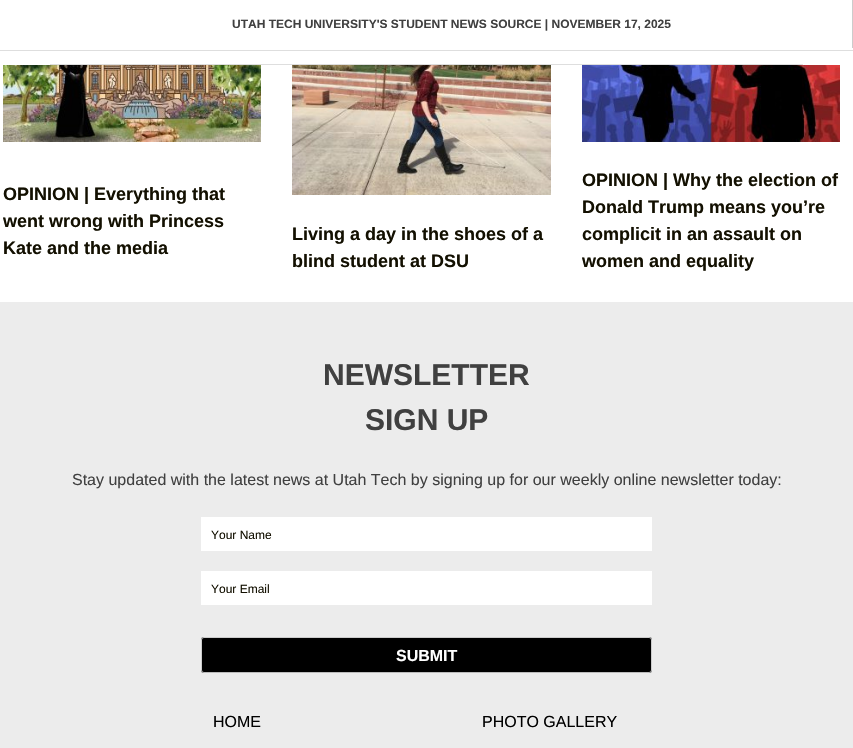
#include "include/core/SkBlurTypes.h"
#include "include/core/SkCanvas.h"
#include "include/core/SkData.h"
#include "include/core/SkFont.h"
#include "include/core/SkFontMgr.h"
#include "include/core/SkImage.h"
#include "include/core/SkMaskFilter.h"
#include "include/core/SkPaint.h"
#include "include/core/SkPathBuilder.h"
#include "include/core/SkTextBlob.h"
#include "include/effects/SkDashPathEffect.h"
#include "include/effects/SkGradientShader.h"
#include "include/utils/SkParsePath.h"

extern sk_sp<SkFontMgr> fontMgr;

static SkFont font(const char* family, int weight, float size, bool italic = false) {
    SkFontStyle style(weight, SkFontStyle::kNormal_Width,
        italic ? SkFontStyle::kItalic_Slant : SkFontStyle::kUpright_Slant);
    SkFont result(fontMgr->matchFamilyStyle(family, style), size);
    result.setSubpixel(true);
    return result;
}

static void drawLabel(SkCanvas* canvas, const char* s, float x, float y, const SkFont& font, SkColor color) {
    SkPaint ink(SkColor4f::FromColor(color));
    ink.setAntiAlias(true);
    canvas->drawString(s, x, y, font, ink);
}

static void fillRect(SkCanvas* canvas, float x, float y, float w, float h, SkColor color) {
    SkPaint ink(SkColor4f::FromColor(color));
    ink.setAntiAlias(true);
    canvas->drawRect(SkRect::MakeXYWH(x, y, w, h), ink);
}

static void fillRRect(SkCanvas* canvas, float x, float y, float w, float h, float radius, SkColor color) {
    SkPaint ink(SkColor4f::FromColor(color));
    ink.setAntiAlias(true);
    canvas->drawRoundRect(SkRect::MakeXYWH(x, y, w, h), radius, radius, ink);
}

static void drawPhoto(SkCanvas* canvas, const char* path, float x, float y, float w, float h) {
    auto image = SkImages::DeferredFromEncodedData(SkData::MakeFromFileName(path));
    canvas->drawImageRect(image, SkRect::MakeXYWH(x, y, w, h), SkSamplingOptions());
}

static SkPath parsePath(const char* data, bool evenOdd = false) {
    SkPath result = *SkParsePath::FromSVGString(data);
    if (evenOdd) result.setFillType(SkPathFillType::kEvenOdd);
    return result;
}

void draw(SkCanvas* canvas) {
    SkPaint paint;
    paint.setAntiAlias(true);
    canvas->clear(0xFFFFFFFF);
    fillRect(canvas, 0, 50, 853, 1, 0xFFDEDEDE);
    fillRect(canvas, 852, 0, 1, 48, 0xFFCCCCCC);
    SkFont font1 = font("Liberation Sans", 700, 12);
    drawLabel(canvas, "UTAH TECH UNIVERSITY'S STUDENT NEWS SOURCE | NOVEMBER 17, 2025", 232, 28, font1, 0xFF404040);
    fillRect(canvas, 50, 64, 753, 1, 0xFFDEDEDE);
    drawPhoto(canvas, "assets/img1.png", 3, 65, 258, 77);
    SkFont font2 = font("Liberation Sans", 700, 18);
    drawLabel(canvas, "OPINION | Everything that", 3, 200, font2, 0xFF131001);
    drawLabel(canvas, "went wrong with Princess", 3, 227, font2, 0xFF131001);
    drawLabel(canvas, "Kate and the media", 3, 254, font2, 0xFF131001);
    drawPhoto(canvas, "assets/img2.png", 292, 65, 259, 130);
    drawLabel(canvas, "Living a day in the shoes of a", 292, 240, font2, 0xFF131001);
    drawLabel(canvas, "blind student at DSU", 292, 267, font2, 0xFF131001);
    drawPhoto(canvas, "assets/img3.png", 582, 65, 258, 77);
    drawLabel(canvas, "OPINION | Why the election of", 582, 186, font2, 0xFF131001);
    drawLabel(canvas, "Donald Trump means you’re", 582, 213, font2, 0xFF131001);
    drawLabel(canvas, "complicit in an assault on", 582, 240, font2, 0xFF131001);
    drawLabel(canvas, "women and equality", 582, 267, font2, 0xFF131001);
    fillRect(canvas, 0, 302, 853, 446, 0xFFECECEC);
    SkFont font3 = font("Liberation Sans", 700, 30);
    drawLabel(canvas, "NEWSLETTER", 323, 385, font3, 0xFF404040);
    drawLabel(canvas, "SIGN UP", 365, 430, font3, 0xFF404040);
    SkFont font4 = font("Liberation Sans", 400, 16);
    drawLabel(canvas, "Stay updated with the latest news at Utah Tech by signing up for our weekly online newsletter today:", 72, 485, font4, 0xFF404040);
    fillRect(canvas, 201, 517, 451, 34, 0xFFFFFFFF);
    SkFont font5 = font("Liberation Sans", 400, 12);
    drawLabel(canvas, "Your Name", 211, 539, font5, 0xFF131001);
    fillRect(canvas, 201, 571, 451, 34, 0xFFFFFFFF);
    drawLabel(canvas, "Your Email", 211, 593, font5, 0xFF131001);
    fillRRect(canvas, 201, 637, 451, 36, 3, 0xFF000000);
    paint.setStroke(true);
    paint.setStrokeWidth(1);
    paint.setColor(0xFFBBBBBB);
    canvas->drawPath(parsePath("M651 672L649 672.5H204L202 672"), paint);
    paint.setColor(0xFFCCCCCC);
    canvas->drawPath(parsePath("M202 672L201.5 670V640L202 638L204 637.5H649L651 638L651.5 640V670L651 672"), paint);
    SkFont font6 = font("Liberation Sans", 700, 16);
    drawLabel(canvas, "SUBMIT", 396, 661, font6, 0xFFFFFFFF);
    drawLabel(canvas, "HOME", 213, 727, font4, 0xFF000000);
    drawLabel(canvas, "PHOTO GALLERY", 482, 727, font4, 0xFF000000);
}
